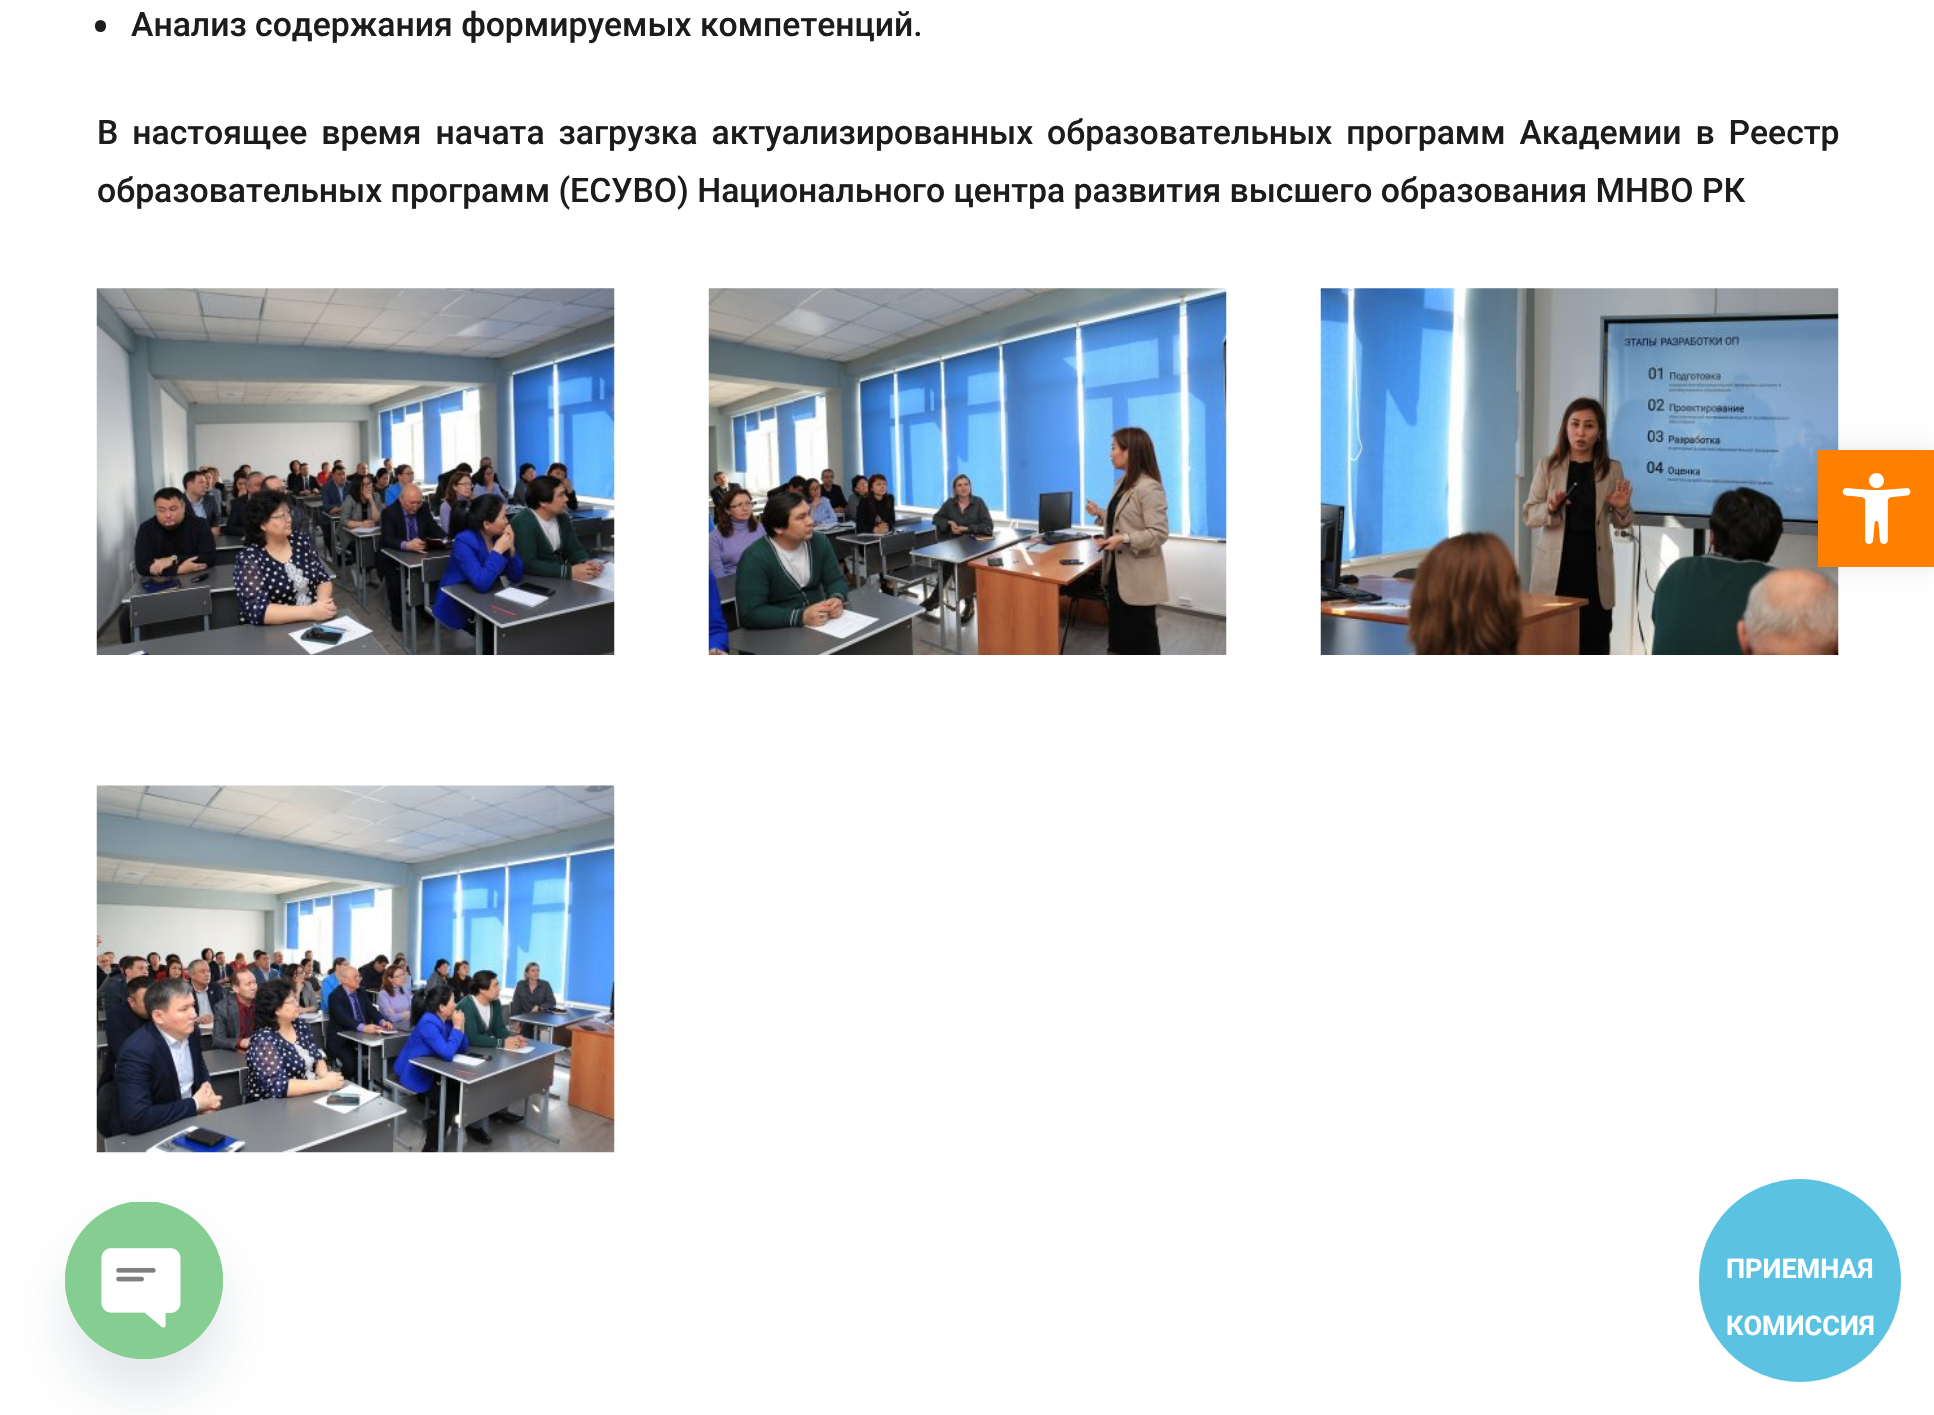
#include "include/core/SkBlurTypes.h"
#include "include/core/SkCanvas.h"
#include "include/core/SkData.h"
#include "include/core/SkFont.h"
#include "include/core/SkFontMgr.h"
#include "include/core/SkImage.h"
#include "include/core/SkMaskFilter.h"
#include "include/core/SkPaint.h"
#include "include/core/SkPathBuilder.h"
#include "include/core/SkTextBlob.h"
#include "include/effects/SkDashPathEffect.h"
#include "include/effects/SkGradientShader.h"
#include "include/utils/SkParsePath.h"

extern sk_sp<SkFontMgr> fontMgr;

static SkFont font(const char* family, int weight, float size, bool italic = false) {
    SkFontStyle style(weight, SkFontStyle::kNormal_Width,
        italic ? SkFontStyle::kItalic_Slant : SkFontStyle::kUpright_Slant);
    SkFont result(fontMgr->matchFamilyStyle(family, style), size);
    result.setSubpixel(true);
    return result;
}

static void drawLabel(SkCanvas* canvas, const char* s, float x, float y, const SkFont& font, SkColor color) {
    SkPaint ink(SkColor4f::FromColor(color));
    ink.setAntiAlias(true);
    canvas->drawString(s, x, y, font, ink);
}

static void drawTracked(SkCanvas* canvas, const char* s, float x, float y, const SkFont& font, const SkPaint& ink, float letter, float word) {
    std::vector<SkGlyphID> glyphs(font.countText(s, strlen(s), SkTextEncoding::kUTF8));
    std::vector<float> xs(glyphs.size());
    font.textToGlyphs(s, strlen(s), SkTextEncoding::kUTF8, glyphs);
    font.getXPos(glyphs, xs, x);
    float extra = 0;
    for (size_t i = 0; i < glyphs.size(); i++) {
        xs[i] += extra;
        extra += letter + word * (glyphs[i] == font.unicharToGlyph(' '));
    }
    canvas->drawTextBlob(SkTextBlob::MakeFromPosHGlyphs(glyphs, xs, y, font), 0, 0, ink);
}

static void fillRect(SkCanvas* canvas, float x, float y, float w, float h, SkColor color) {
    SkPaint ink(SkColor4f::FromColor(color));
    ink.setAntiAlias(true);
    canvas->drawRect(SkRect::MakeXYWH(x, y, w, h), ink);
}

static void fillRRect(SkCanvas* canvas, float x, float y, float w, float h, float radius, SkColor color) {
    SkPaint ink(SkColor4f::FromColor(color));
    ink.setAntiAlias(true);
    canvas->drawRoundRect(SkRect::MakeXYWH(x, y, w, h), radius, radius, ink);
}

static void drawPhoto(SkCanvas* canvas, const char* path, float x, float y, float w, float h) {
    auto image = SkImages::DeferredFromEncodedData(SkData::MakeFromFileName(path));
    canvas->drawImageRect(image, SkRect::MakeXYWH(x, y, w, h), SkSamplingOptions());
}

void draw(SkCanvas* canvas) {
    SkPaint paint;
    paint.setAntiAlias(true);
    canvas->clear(0xFFFFFFFF);
    fillRRect(canvas, 95, 20, 11, 12, 5.5f, 0xFF1C1C1C);
    SkFont font1 = font("Roboto", 500, 33.75f);
    drawLabel(canvas, "Анализ содержания формируемых компетенций.", 131, 36, font1, 0xFF1C1C1C);
    paint.setColor(0xFF1C1C1C);
    drawTracked(canvas, "В настоящее время начата загрузка актуализированных образовательных программ Академии в Реестр", 97, 144, font1, paint, 0, 5.5f);
    drawLabel(canvas, "образовательных программ (ЕСУВО) Национального центра развития высшего образования МНВО РК", 97, 202, font1, 0xFF1C1C1C);
    drawPhoto(canvas, "assets/img1.png", 96, 288, 519, 367);
    drawPhoto(canvas, "assets/img2.png", 708, 288, 519, 367);
    drawPhoto(canvas, "assets/img3.png", 1320, 288, 519, 367);
    drawPhoto(canvas, "assets/img4.png", 96, 785, 519, 368);
    paint.setColor(0x1A000000);
    paint.setMaskFilter(SkMaskFilter::MakeBlur(kNormal_SkBlurStyle, 11));
    canvas->drawRect(SkRect::MakeXYWH(1818, 450, 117, 117), paint);
    paint.setMaskFilter(nullptr);
    fillRect(canvas, 1818, 450, 116, 117, 0xFFFF7F00);
    drawPhoto(canvas, "assets/img5.png", 1842, 473, 69, 71);
    paint.setColor(0x2949687E);
    paint.setMaskFilter(SkMaskFilter::MakeBlur(kNormal_SkBlurStyle, 27));
    canvas->drawRoundRect(SkRect::MakeXYWH(65, 1238, 158, 157), 78.5f, 78.5f, paint);
    paint.setMaskFilter(nullptr);
    fillRRect(canvas, 65, 1202, 158, 157, 78.5f, 0xFF86CD91);
    drawPhoto(canvas, "assets/img6.png", 65, 1202, 158, 157);
    fillRRect(canvas, 1699, 1179, 202, 203, 101, 0xFF5CC2E2);
    SkFont font2 = font("Roboto", 700, 27);
    drawLabel(canvas, "ПРИЕМНАЯ", 1726, 1278, font2, 0xFFFFFFFF);
    drawLabel(canvas, "КОМИССИЯ", 1726, 1335, font2, 0xFFFFFFFF);
}
